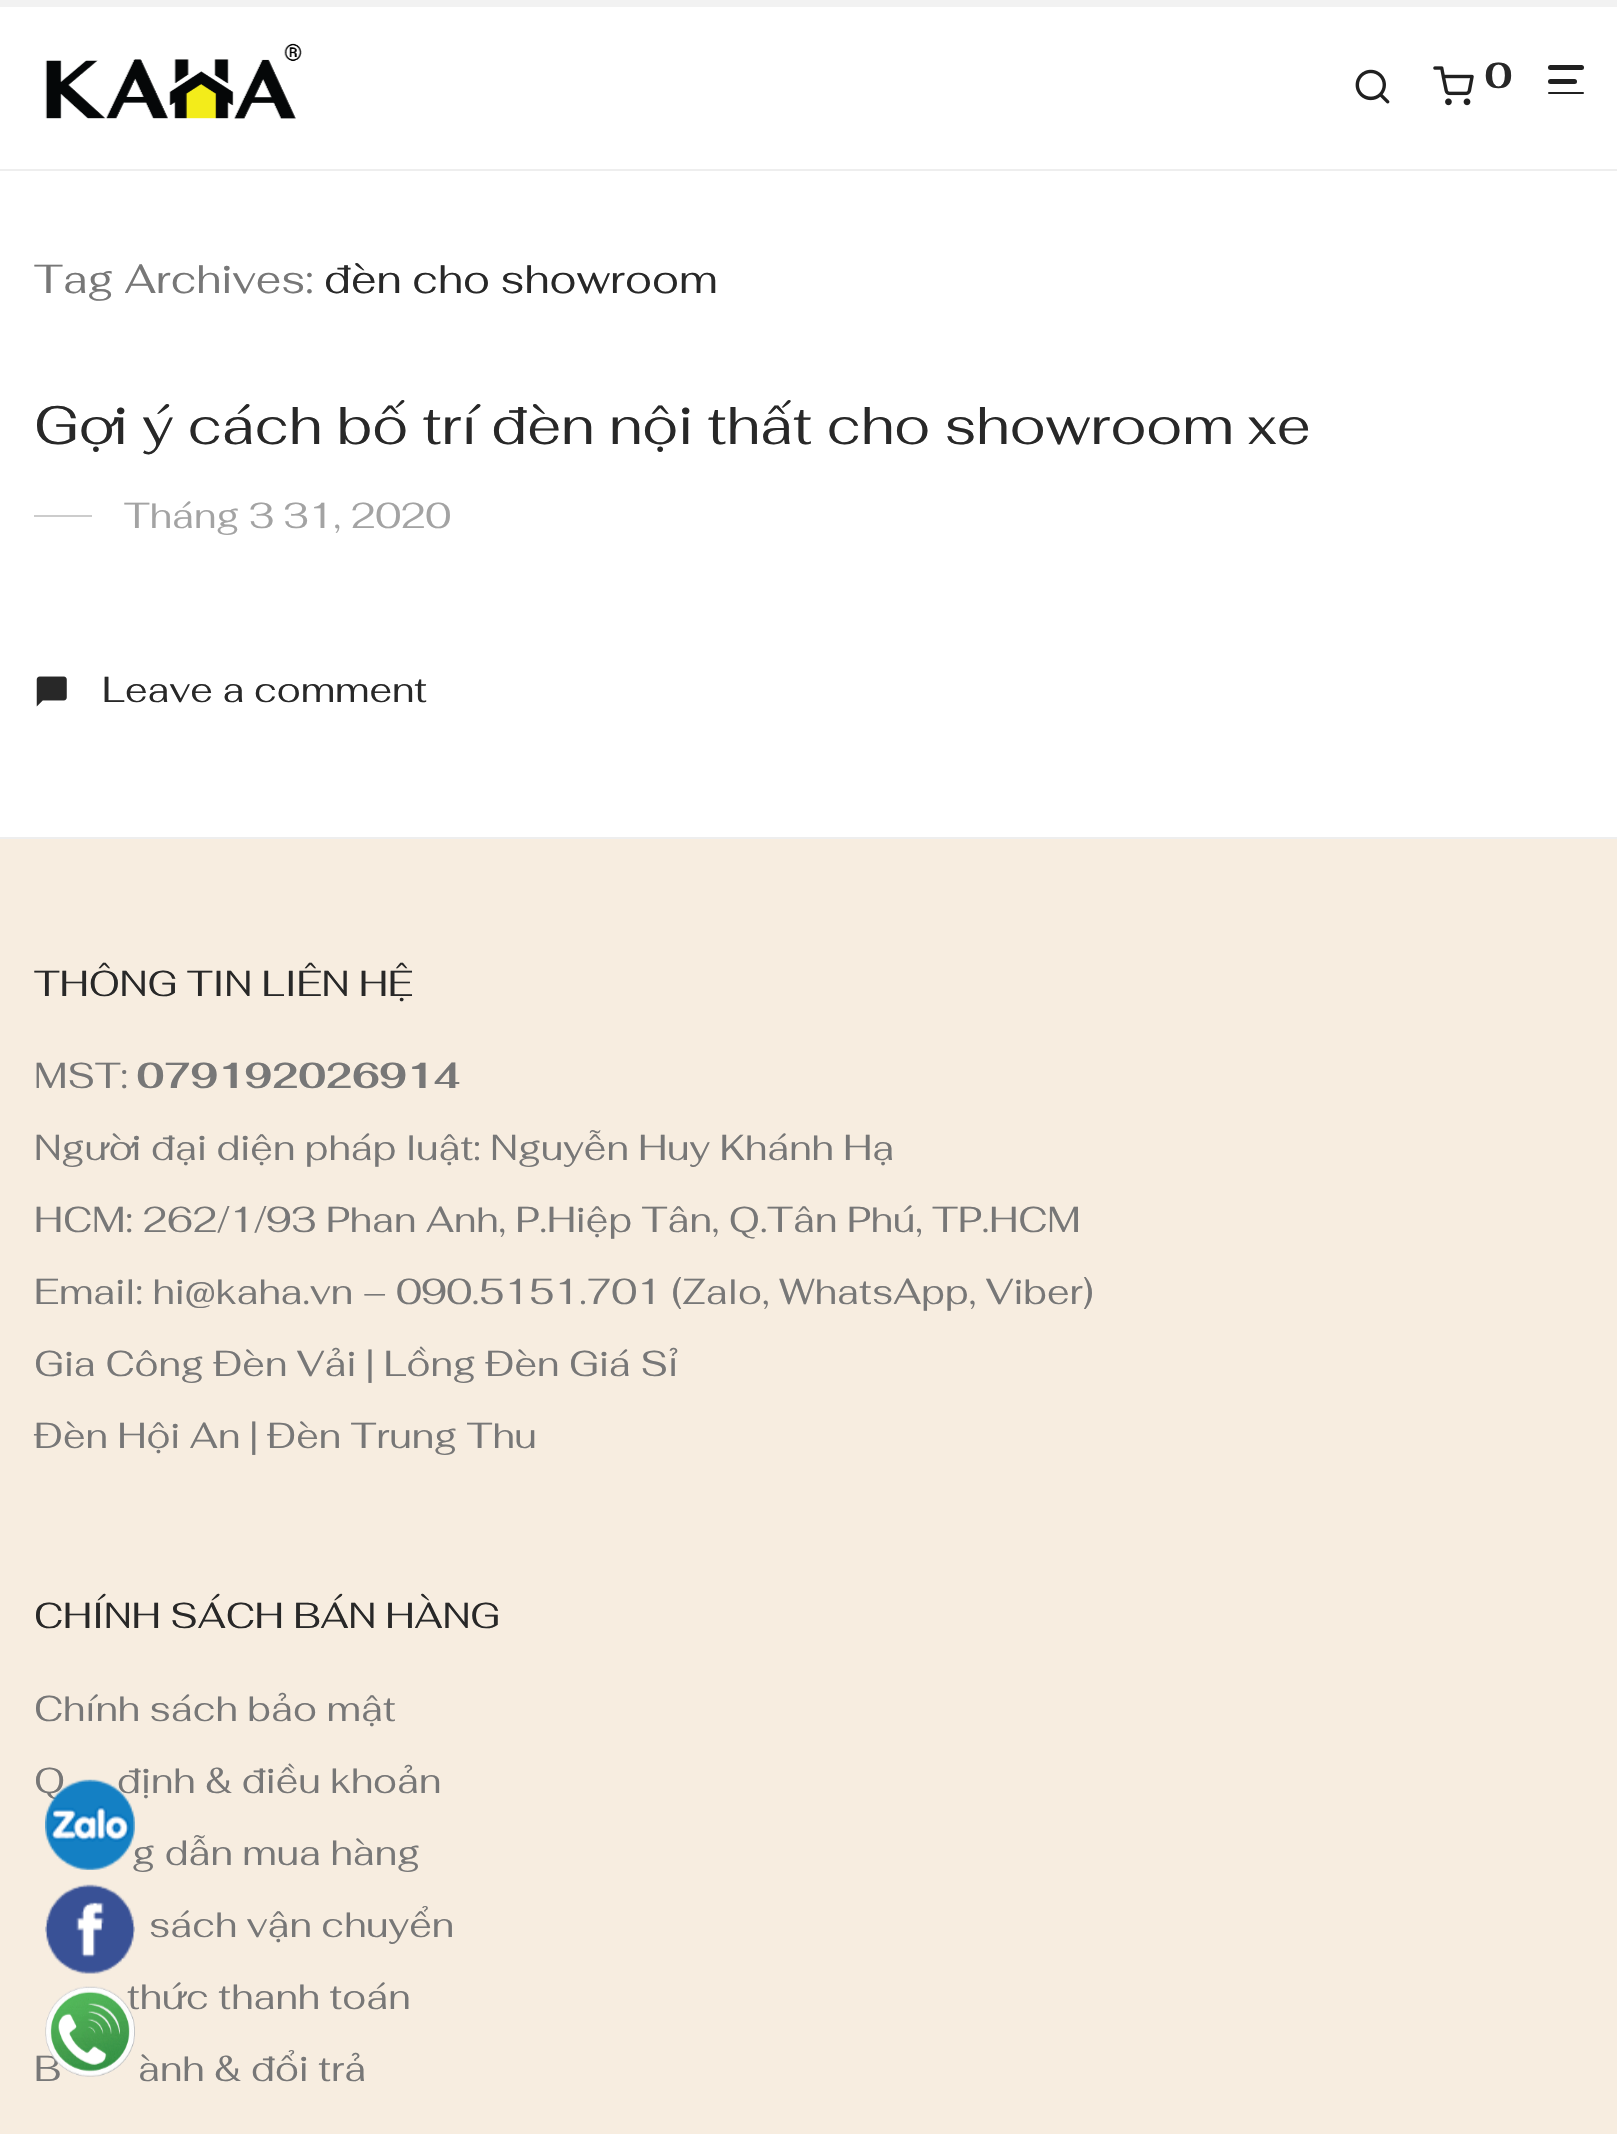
#include "include/core/SkBlurTypes.h"
#include "include/core/SkCanvas.h"
#include "include/core/SkData.h"
#include "include/core/SkFont.h"
#include "include/core/SkFontMgr.h"
#include "include/core/SkImage.h"
#include "include/core/SkMaskFilter.h"
#include "include/core/SkPaint.h"
#include "include/core/SkPathBuilder.h"
#include "include/core/SkTextBlob.h"
#include "include/effects/SkDashPathEffect.h"
#include "include/effects/SkGradientShader.h"
#include "include/utils/SkParsePath.h"

extern sk_sp<SkFontMgr> fontMgr;

static SkFont font(const char* family, int weight, float size, bool italic = false) {
    SkFontStyle style(weight, SkFontStyle::kNormal_Width,
        italic ? SkFontStyle::kItalic_Slant : SkFontStyle::kUpright_Slant);
    SkFont result(fontMgr->matchFamilyStyle(family, style), size);
    result.setSubpixel(true);
    return result;
}

static void drawLabel(SkCanvas* canvas, const char* s, float x, float y, const SkFont& font, SkColor color) {
    SkPaint ink(SkColor4f::FromColor(color));
    ink.setAntiAlias(true);
    canvas->drawString(s, x, y, font, ink);
}

static void fillRect(SkCanvas* canvas, float x, float y, float w, float h, SkColor color) {
    SkPaint ink(SkColor4f::FromColor(color));
    ink.setAntiAlias(true);
    canvas->drawRect(SkRect::MakeXYWH(x, y, w, h), ink);
}

static void fillRRect(SkCanvas* canvas, float x, float y, float w, float h, float radius, SkColor color) {
    SkPaint ink(SkColor4f::FromColor(color));
    ink.setAntiAlias(true);
    canvas->drawRoundRect(SkRect::MakeXYWH(x, y, w, h), radius, radius, ink);
}

static void drawPhoto(SkCanvas* canvas, const char* path, float x, float y, float w, float h) {
    auto image = SkImages::DeferredFromEncodedData(SkData::MakeFromFileName(path));
    canvas->drawImageRect(image, SkRect::MakeXYWH(x, y, w, h), SkSamplingOptions());
}

void draw(SkCanvas* canvas) {
    SkPaint paint;
    paint.setAntiAlias(true);
    canvas->clear(0xFFFFFFFF);
    fillRect(canvas, 0, 0, 1617, 7, 0xFFF2F2F2);
    fillRect(canvas, 0, 169, 1617, 2, 0xFFEEEEEE);
    drawPhoto(canvas, "assets/img1.png", 45, 43, 257, 76);
    drawPhoto(canvas, "assets/img2.png", 1355, 69, 35, 35);
    drawPhoto(canvas, "assets/img3.png", 1433, 66, 41, 40);
    SkFont font1 = font("Fahkwang", 700, 36);
    drawLabel(canvas, "0", 1485, 88, font1, 0xFF282828);
    fillRRect(canvas, 1548, 65, 36, 5, 2.5f, 0xFF202020);
    fillRRect(canvas, 1548, 79, 29, 5, 2.5f, 0xFF202020);
    fillRRect(canvas, 1548, 92, 36, 2, 1, 0xFF202020);
    SkFont font2 = font("Fahkwang", 400, 40.5f);
    drawLabel(canvas, "Tag Archives:", 34, 293, font2, 0xFF777777);
    drawLabel(canvas, "đèn cho showroom", 324, 293, font2, 0xFF282828);
    SkFont font3 = font("Fahkwang", 400, 54);
    drawLabel(canvas, "Gợi ý cách bố trí đèn nội thất cho showroom xe", 34, 444, font3, 0xFF282828);
    fillRect(canvas, 34, 515, 58, 2, 0xFFCCCCCC);
    SkFont font4 = font("Fahkwang", 400, 36);
    drawLabel(canvas, "Tháng 3 31, 2020", 124, 528, font4, 0xFFA3A3A3);
    drawPhoto(canvas, "assets/img4.png", 36, 676, 31, 31);
    drawLabel(canvas, "Leave a comment", 102, 702, font4, 0xFF282828);
    fillRect(canvas, 0, 839, 1617, 1295, 0xFFF7EDE0);
    fillRect(canvas, 0, 837, 1617, 2, 0xFFEEEEEE);
    drawLabel(canvas, "THÔNG TIN LIÊN HỆ", 34, 996, font4, 0xFF282828);
    drawLabel(canvas, "MST:", 34, 1088, font4, 0xFF777777);
    drawLabel(canvas, "079192026914", 137, 1088, font1, 0xFF777777);
    drawLabel(canvas, "Người đại diện pháp luật: Nguyễn Huy Khánh Hạ", 34, 1160, font4, 0xFF777777);
    drawLabel(canvas, "HCM: 262/1/93 Phan Anh, P.Hiệp Tân, Q.Tân Phú, TP.HCM", 34, 1232, font4, 0xFF777777);
    drawLabel(canvas, "Email: hi@kaha.vn – 090.5151.701 (Zalo, WhatsApp, Viber)", 34, 1304, font4, 0xFF777777);
    drawLabel(canvas, "Gia Công Đèn Vải | Lồng Đèn Giá Sỉ", 34, 1376, font4, 0xFF777777);
    drawLabel(canvas, "Đèn Hội An | Đèn Trung Thu", 34, 1448, font4, 0xFF777777);
    drawLabel(canvas, "CHÍNH SÁCH BÁN HÀNG", 34, 1628, font4, 0xFF282828);
    drawLabel(canvas, "Chính sách bảo mật", 34, 1721, font4, 0xFF777777);
    drawLabel(canvas, "Q", 34, 1793, font4, 0xFF777777);
    drawLabel(canvas, "định & điều khoản", 117, 1793, font4, 0xFF777777);
    drawLabel(canvas, "g dẫn mua hàng", 132, 1865, font4, 0xFF777777);
    drawLabel(canvas, "sách vận chuyển", 149, 1937, font4, 0xFF777777);
    drawLabel(canvas, "thức thanh toán", 127, 2009, font4, 0xFF777777);
    drawLabel(canvas, "B", 34, 2081, font4, 0xFF777777);
    drawLabel(canvas, "ành & đổi trả", 138, 2081, font4, 0xFF777777);
    drawPhoto(canvas, "assets/img5.png", 45, 1779, 90, 91);
    drawPhoto(canvas, "assets/img6.png", 45, 1884, 90, 90);
    drawPhoto(canvas, "assets/img7.png", 45, 1986, 90, 91);
}
